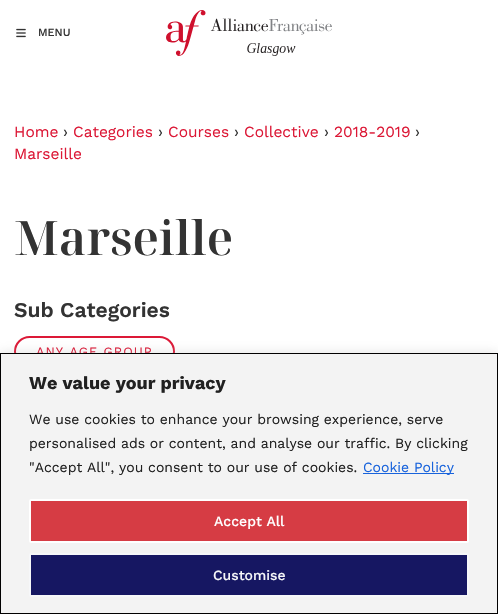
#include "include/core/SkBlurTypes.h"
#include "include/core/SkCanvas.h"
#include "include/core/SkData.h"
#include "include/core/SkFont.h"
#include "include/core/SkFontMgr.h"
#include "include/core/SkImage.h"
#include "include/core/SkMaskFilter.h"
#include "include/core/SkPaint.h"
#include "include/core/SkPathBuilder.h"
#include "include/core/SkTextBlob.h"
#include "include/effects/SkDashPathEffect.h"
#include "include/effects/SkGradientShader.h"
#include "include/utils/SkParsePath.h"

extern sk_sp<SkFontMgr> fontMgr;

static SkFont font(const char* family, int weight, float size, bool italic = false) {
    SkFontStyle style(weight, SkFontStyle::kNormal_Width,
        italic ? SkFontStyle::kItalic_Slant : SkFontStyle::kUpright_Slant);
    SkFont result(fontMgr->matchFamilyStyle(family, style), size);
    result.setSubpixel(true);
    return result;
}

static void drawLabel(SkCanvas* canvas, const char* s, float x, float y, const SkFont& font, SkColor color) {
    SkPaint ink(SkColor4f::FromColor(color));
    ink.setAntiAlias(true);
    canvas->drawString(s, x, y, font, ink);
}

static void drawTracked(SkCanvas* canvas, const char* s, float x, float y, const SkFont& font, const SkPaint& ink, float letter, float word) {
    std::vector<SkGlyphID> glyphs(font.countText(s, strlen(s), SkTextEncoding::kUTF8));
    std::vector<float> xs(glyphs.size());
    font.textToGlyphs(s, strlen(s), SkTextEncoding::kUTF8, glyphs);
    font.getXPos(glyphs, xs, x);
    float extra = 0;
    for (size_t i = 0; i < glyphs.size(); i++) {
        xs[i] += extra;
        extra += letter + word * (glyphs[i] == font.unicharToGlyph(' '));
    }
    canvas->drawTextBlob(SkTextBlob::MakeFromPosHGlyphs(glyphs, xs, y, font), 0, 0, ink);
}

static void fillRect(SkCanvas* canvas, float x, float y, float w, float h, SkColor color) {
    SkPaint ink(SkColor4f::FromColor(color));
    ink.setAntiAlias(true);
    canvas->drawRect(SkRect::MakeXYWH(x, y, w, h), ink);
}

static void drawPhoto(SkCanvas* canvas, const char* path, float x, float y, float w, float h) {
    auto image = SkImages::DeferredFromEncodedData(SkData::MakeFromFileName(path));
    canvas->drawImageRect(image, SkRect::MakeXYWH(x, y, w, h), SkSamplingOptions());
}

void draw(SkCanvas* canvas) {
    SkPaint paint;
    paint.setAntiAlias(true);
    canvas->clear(0xFFFFFFFF);
    drawPhoto(canvas, "assets/img1.png", 16, 28, 10, 10);
    SkFont font1 = font("Work Sans", 500, 11);
    drawLabel(canvas, "MENU", 38, 36, font1, 0xFF333333);
    drawPhoto(canvas, "assets/img2.png", 166, 10, 166, 46);
    SkFont font2 = font("Work Sans", 400, 15.5f);
    drawLabel(canvas, "Home", 14, 137, font2, 0xFFDC1836);
    drawLabel(canvas, "›", 63, 137, font2, 0xFF333333);
    drawLabel(canvas, "Categories", 73, 137, font2, 0xFFDC1836);
    drawLabel(canvas, "›", 158, 137, font2, 0xFF333333);
    drawLabel(canvas, "Courses", 168, 137, font2, 0xFFDC1836);
    drawLabel(canvas, "›", 234, 137, font2, 0xFF333333);
    drawLabel(canvas, "Collective", 244, 137, font2, 0xFFDC1836);
    drawLabel(canvas, "›", 324, 137, font2, 0xFF333333);
    drawLabel(canvas, "2018-2019", 334, 137, font2, 0xFFDC1836);
    drawLabel(canvas, "›", 415, 137, font2, 0xFF333333);
    drawLabel(canvas, "Marseille", 14, 159, font2, 0xFFDC1836);
    SkFont font3 = font("Noto Serif Display", 600, 47.25f);
    drawLabel(canvas, "Marseille", 14, 255, font3, 0xFF333333);
    SkFont font4 = font("Work Sans", 600, 21);
    drawLabel(canvas, "Sub Categories", 14, 317, font4, 0xFF333333);
    paint.setStroke(true);
    paint.setStrokeWidth(2);
    paint.setColor(0xFFDC1836);
    canvas->drawRoundRect(SkRect::MakeXYWH(15, 337, 159, 29), 14.5f, 14.5f, paint);
    SkFont font5 = font("Work Sans", 400, 12.75f);
    paint.setStroke(false);
    drawTracked(canvas, "ANY AGE GROUP", 36, 356, font5, paint, 1, 0);
    paint.setColor(0x4DACABAB);
    paint.setMaskFilter(SkMaskFilter::MakeBlur(kNormal_SkBlurStyle, 5));
    canvas->drawRect(SkRect::MakeXYWH(0, 352, 498, 261), paint);
    paint.setMaskFilter(nullptr);
    paint.setColor(0xFFF3F3F3);
    canvas->drawRect(SkRect::MakeXYWH(0.5f, 353.5f, 497, 260), paint);
    paint.setStroke(true);
    paint.setStrokeWidth(1);
    paint.setColor(0xFF010000);
    canvas->drawRect(SkRect::MakeXYWH(0.5f, 353.5f, 497, 260), paint);
    SkFont font6 = font("Work Sans", 700, 18);
    drawLabel(canvas, "We value your privacy", 29, 389, font6, 0xFF212121);
    SkFont font7 = font("Work Sans", 400, 14);
    drawLabel(canvas, "We use cookies to enhance your browsing experience, serve", 29, 424, font7, 0xFF212121);
    drawLabel(canvas, "personalised ads or content, and analyse our traffic. By clicking", 29, 448, font7, 0xFF212121);
    drawLabel(canvas, "\"Accept All\", you consent to our use of cookies.", 29, 472, font7, 0xFF212121);
    fillRect(canvas, 363, 473, 91, 1, 0xFF1863DC);
    drawLabel(canvas, "Cookie Policy", 363, 472, font7, 0xFF1863DC);
    paint.setStroke(false);
    paint.setColor(0xFFD63C44);
    canvas->drawRoundRect(SkRect::MakeXYWH(30, 500, 438, 42), 1, 1, paint);
    paint.setStroke(true);
    paint.setStrokeWidth(2);
    paint.setColor(0xFFFFFFFF);
    canvas->drawRoundRect(SkRect::MakeXYWH(30, 500, 438, 42), 1, 1, paint);
    SkFont font8 = font("Work Sans", 500, 14);
    drawLabel(canvas, "Accept All", 214, 526, font8, 0xFFFFFFFF);
    paint.setStroke(false);
    paint.setColor(0xFF161762);
    canvas->drawRoundRect(SkRect::MakeXYWH(30, 554, 438, 42), 1, 1, paint);
    paint.setStroke(true);
    paint.setColor(0xFFF6F7F9);
    canvas->drawRoundRect(SkRect::MakeXYWH(30, 554, 438, 42), 1, 1, paint);
    drawLabel(canvas, "Customise", 213, 580, font8, 0xFFF6F7F9);
}
